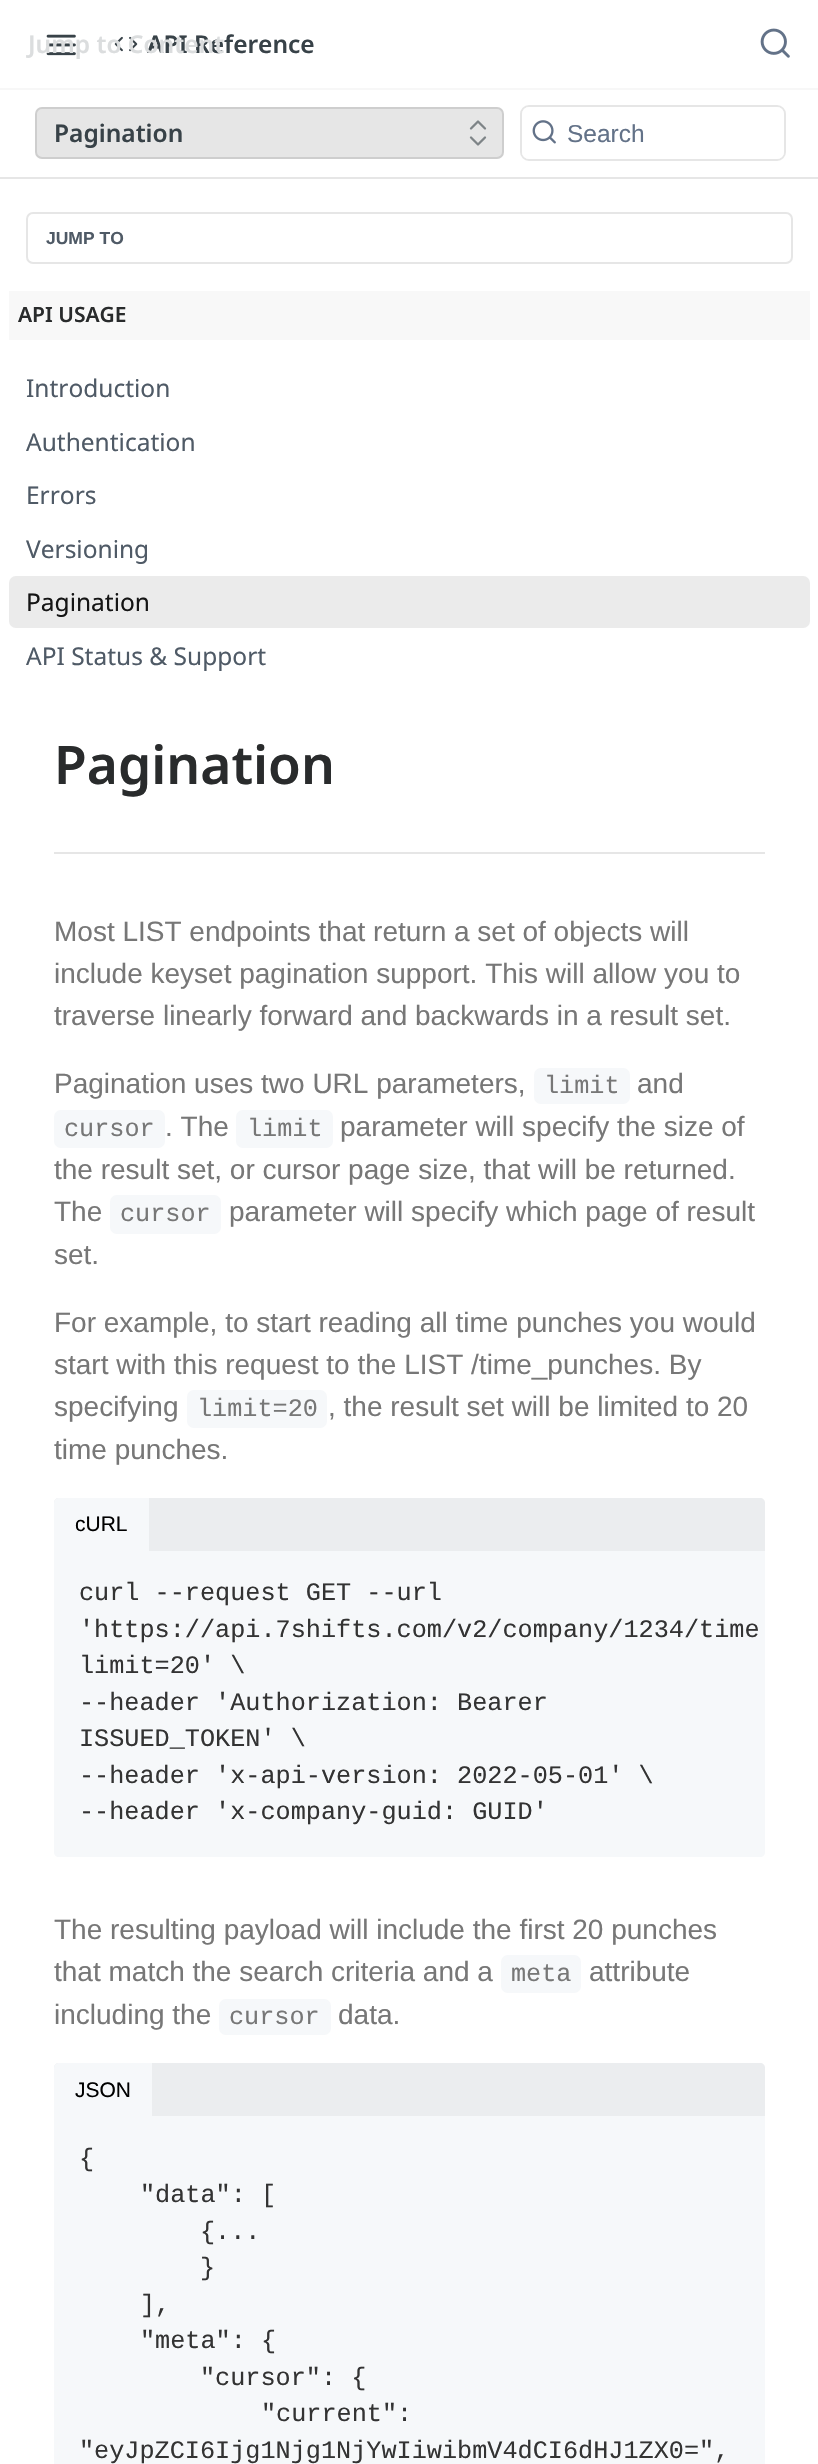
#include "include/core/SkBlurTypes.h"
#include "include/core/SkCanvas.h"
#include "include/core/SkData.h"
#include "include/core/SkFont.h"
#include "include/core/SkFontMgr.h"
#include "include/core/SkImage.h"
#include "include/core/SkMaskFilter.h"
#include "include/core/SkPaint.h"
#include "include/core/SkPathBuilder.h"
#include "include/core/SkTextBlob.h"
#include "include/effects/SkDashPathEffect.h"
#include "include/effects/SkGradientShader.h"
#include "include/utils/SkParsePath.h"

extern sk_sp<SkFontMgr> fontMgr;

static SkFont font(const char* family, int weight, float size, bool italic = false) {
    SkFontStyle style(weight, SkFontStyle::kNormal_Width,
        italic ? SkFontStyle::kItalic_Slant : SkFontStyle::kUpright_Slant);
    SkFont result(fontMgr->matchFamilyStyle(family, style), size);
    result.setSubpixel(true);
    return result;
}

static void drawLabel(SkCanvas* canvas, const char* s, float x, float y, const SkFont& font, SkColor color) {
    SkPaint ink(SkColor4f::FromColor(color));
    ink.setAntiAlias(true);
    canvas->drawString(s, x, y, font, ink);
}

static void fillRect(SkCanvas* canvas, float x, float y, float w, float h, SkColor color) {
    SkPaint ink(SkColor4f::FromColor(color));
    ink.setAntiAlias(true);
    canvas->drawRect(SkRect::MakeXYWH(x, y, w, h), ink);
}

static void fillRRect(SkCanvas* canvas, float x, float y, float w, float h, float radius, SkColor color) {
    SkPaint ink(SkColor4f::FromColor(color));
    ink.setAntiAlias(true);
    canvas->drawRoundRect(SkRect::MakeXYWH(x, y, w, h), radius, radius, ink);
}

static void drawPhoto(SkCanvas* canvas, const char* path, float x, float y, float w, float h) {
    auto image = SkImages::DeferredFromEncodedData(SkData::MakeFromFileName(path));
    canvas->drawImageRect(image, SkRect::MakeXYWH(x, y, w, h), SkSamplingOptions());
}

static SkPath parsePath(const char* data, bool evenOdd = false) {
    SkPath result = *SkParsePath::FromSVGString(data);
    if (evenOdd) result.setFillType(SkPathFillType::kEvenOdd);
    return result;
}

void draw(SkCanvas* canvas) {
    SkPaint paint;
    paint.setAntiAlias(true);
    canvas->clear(0xFFFFFFFF);
    fillRect(canvas, 0, 177, 818, 2, 0xFFE6E6E6);
    fillRect(canvas, 0, 88, 818, 2, 0xFFF7F7F7);
    drawPhoto(canvas, "assets/img1.png", 46, 34, 30, 22);
    drawPhoto(canvas, "assets/img2.png", 114, 36, 24, 16);
    SkFont font1 = font("Noto Sans", 600, 24.5f);
    drawLabel(canvas, "API Reference", 147, 53, font1, 0xFF384248);
    drawLabel(canvas, "Jump to Content", 28, 53, font1, 0xFFDBDDDE);
    drawPhoto(canvas, "assets/img3.png", 760, 28, 30, 30);
    fillRRect(canvas, 35, 107, 469, 52, 7, 0xFFE6E6E6);
    paint.setStroke(true);
    paint.setStrokeWidth(2);
    paint.setColor(0x1A000000);
    canvas->drawRoundRect(SkRect::MakeXYWH(36, 108, 467, 50), 6, 6, paint);
    drawLabel(canvas, "Pagination", 54, 142, font1, 0xFF384248);
    paint.setStrokeWidth(2.3f);
    paint.setStrokeCap(SkPaint::kRound_Cap);
    paint.setStrokeJoin(SkPaint::kRound_Join);
    paint.setColor(0xFF7E8487);
    canvas->drawPath(parsePath("M471 137.5L478 144.5L485 137.5M485 128.5L478 121.5L471 128.5"), paint);
    paint.setStrokeWidth(2);
    paint.setStrokeCap(SkPaint::kButt_Cap);
    paint.setStrokeJoin(SkPaint::kMiter_Join);
    paint.setColor(0xFFE6E6E6);
    canvas->drawRoundRect(SkRect::MakeXYWH(521, 106, 264, 54), 8, 8, paint);
    fillRRect(canvas, 522, 107, 262, 52, 7, 0xFFFFFFFF);
    drawPhoto(canvas, "assets/img4.png", 532, 120, 24, 24);
    SkFont font2 = font("Liberation Sans", 400, 24.5f);
    drawLabel(canvas, "Search", 567, 142, font2, 0xFF637288);
    canvas->drawRoundRect(SkRect::MakeXYWH(27, 213, 765, 50), 6, 6, paint);
    SkFont font3 = font("Liberation Sans", 700, 17.5f);
    drawLabel(canvas, "JUMP TO", 46, 244, font3, 0xFF4F5A66);
    fillRect(canvas, 9, 291, 801, 49, 0xFFF8F8F8);
    SkFont font4 = font("Noto Sans", 600, 21);
    drawLabel(canvas, "API USAGE", 18, 322, font4, 0xFF292B2C);
    SkFont font5 = font("Noto Sans", 400, 24.5f);
    drawLabel(canvas, "Introduction", 26, 397, font5, 0xFF4F5A66);
    drawLabel(canvas, "Authentication", 26, 451, font5, 0xFF4F5A66);
    drawLabel(canvas, "Errors", 26, 504, font5, 0xFF4F5A66);
    drawLabel(canvas, "Versioning", 26, 558, font5, 0xFF4F5A66);
    fillRRect(canvas, 9, 576, 801, 52, 7, 0xFFEBEBEB);
    drawLabel(canvas, "Pagination", 26, 611, font5, 0xFF151515);
    drawLabel(canvas, "API Status & Support", 26, 665, font5, 0xFF4F5A66);
    fillRect(canvas, 54, 852, 711, 2, 0xFFE6E6E6);
    SkFont font6 = font("Noto Sans", 600, 53.25f);
    drawLabel(canvas, "Pagination", 54, 784, font6, 0xFF292B2C);
    SkFont font7 = font("Liberation Sans", 400, 28);
    drawLabel(canvas, "Most LIST endpoints that return a set of objects will", 54, 941, font7, 0xFF777777);
    drawLabel(canvas, "include keyset pagination support. This will allow you to", 54, 983, font7, 0xFF777777);
    drawLabel(canvas, "traverse linearly forward and backwards in a result set.", 54, 1025, font7, 0xFF777777);
    drawLabel(canvas, "Pagination uses two URL parameters,", 54, 1093, font7, 0xFF777777);
    fillRRect(canvas, 534, 1068, 96, 36, 7, 0xFFF6F8FA);
    SkFont font8 = font("Liberation Mono", 400, 25.2f);
    drawLabel(canvas, "limit", 544, 1093, font8, 0xFF777777);
    drawLabel(canvas, "and", 637, 1093, font7, 0xFF777777);
    fillRRect(canvas, 54, 1110, 111, 38, 7, 0xFFF6F8FA);
    drawLabel(canvas, "cursor", 64, 1136, font8, 0xFF777777);
    drawLabel(canvas, ". The", 165, 1136, font7, 0xFF777777);
    fillRRect(canvas, 236, 1110, 97, 38, 7, 0xFFF6F8FA);
    drawLabel(canvas, "limit", 247, 1136, font8, 0xFF777777);
    drawLabel(canvas, "parameter will specify the size of", 340, 1136, font7, 0xFF777777);
    drawLabel(canvas, "the result set, or cursor page size, that will be returned.", 54, 1179, font7, 0xFF777777);
    drawLabel(canvas, "The", 54, 1221, font7, 0xFF777777);
    fillRRect(canvas, 110, 1195, 111, 39, 7, 0xFFF6F8FA);
    drawLabel(canvas, "cursor", 120, 1221, font8, 0xFF777777);
    drawLabel(canvas, "parameter will specify which page of result", 229, 1221, font7, 0xFF777777);
    drawLabel(canvas, "set.", 54, 1264, font7, 0xFF777777);
    drawLabel(canvas, "For example, to start reading all time punches you would", 54, 1332, font7, 0xFF777777);
    drawLabel(canvas, "start with this request to the LIST /time_punches. By", 54, 1374, font7, 0xFF777777);
    drawLabel(canvas, "specifying", 54, 1416, font7, 0xFF777777);
    fillRRect(canvas, 187, 1390, 140, 38, 7, 0xFFF6F8FA);
    drawLabel(canvas, "limit=20", 197, 1416, font8, 0xFF777777);
    drawLabel(canvas, ", the result set will be limited to 20", 328, 1416, font7, 0xFF777777);
    drawLabel(canvas, "time punches.", 54, 1459, font7, 0xFF777777);
    paint.setStroke(false);
    paint.setColor(0xFFEBEDEF);
    canvas->drawPath(parsePath("M59 1498H760C763 1498 765 1500 765 1503V1551H54V1503C54 1500 56 1498 59 1498Z"), paint);
    paint.setColor(0xFFF6F8FA);
    canvas->drawPath(parsePath("M59 1498H149V1551H54V1503C54 1500 56 1498 59 1498Z"), paint);
    SkFont font9 = font("Liberation Sans", 400, 21);
    drawLabel(canvas, "cURL", 75, 1531, font9, 0xFF000000);
    canvas->drawPath(parsePath("M54 1551H765V1852C765 1855 763 1857 760 1857H59C56 1857 54 1855 54 1852Z"), paint);
    drawLabel(canvas, "curl --request GET --url", 79, 1600, font8, 0xFF333333);
    drawLabel(canvas, "'https://api.7shifts.com/v2/company/1234/time", 79, 1637, font8, 0xFF333333);
    drawLabel(canvas, "limit=20' \\", 79, 1673, font8, 0xFF333333);
    drawLabel(canvas, "--header 'Authorization: Bearer", 79, 1710, font8, 0xFF333333);
    drawLabel(canvas, "ISSUED_TOKEN' \\", 79, 1746, font8, 0xFF333333);
    drawLabel(canvas, "--header 'x-api-version: 2022-05-01' \\", 79, 1783, font8, 0xFF333333);
    drawLabel(canvas, "--header 'x-company-guid: GUID'", 79, 1819, font8, 0xFF333333);
    drawLabel(canvas, "The resulting payload will include the first 20 punches", 54, 1939, font7, 0xFF777777);
    drawLabel(canvas, "that match the search criteria and a", 54, 1981, font7, 0xFF777777);
    fillRRect(canvas, 501, 1955, 80, 38, 7, 0xFFF6F8FA);
    drawLabel(canvas, "meta", 511, 1981, font8, 0xFF777777);
    drawLabel(canvas, "attribute", 589, 1981, font7, 0xFF777777);
    drawLabel(canvas, "including the", 54, 2024, font7, 0xFF777777);
    fillRRect(canvas, 219, 1999, 112, 36, 7, 0xFFF6F8FA);
    drawLabel(canvas, "cursor", 229, 2024, font8, 0xFF777777);
    drawLabel(canvas, "data.", 338, 2024, font7, 0xFF777777);
    paint.setColor(0xFFEBEDEF);
    canvas->drawPath(parsePath("M59 2063H760C763 2063 765 2065 765 2068V2116H54V2068C54 2065 56 2063 59 2063Z"), paint);
    paint.setColor(0xFFF6F8FA);
    canvas->drawPath(parsePath("M59 2063H152V2116H54V2068C54 2065 56 2063 59 2063Z"), paint);
    drawLabel(canvas, "JSON", 75, 2097, font9, 0xFF000000);
    fillRect(canvas, 54, 2116, 711, 348, 0xFFF6F8FA);
    drawLabel(canvas, "{", 79, 2166, font8, 0xFF333333);
    drawLabel(canvas, "\"data\": [", 140, 2202, font8, 0xFF333333);
    drawLabel(canvas, "{...", 200, 2239, font8, 0xFF333333);
    drawLabel(canvas, "}", 200, 2275, font8, 0xFF333333);
    drawLabel(canvas, "],", 140, 2312, font8, 0xFF333333);
    drawLabel(canvas, "\"meta\": {", 140, 2348, font8, 0xFF333333);
    drawLabel(canvas, "\"cursor\": {", 200, 2385, font8, 0xFF333333);
    drawLabel(canvas, "\"current\":", 261, 2421, font8, 0xFF333333);
    drawLabel(canvas, "\"eyJpZCI6Ijg1Njg1NjYwIiwibmV4dCI6dHJ1ZX0=\",", 79, 2458, font8, 0xFF333333);
}
